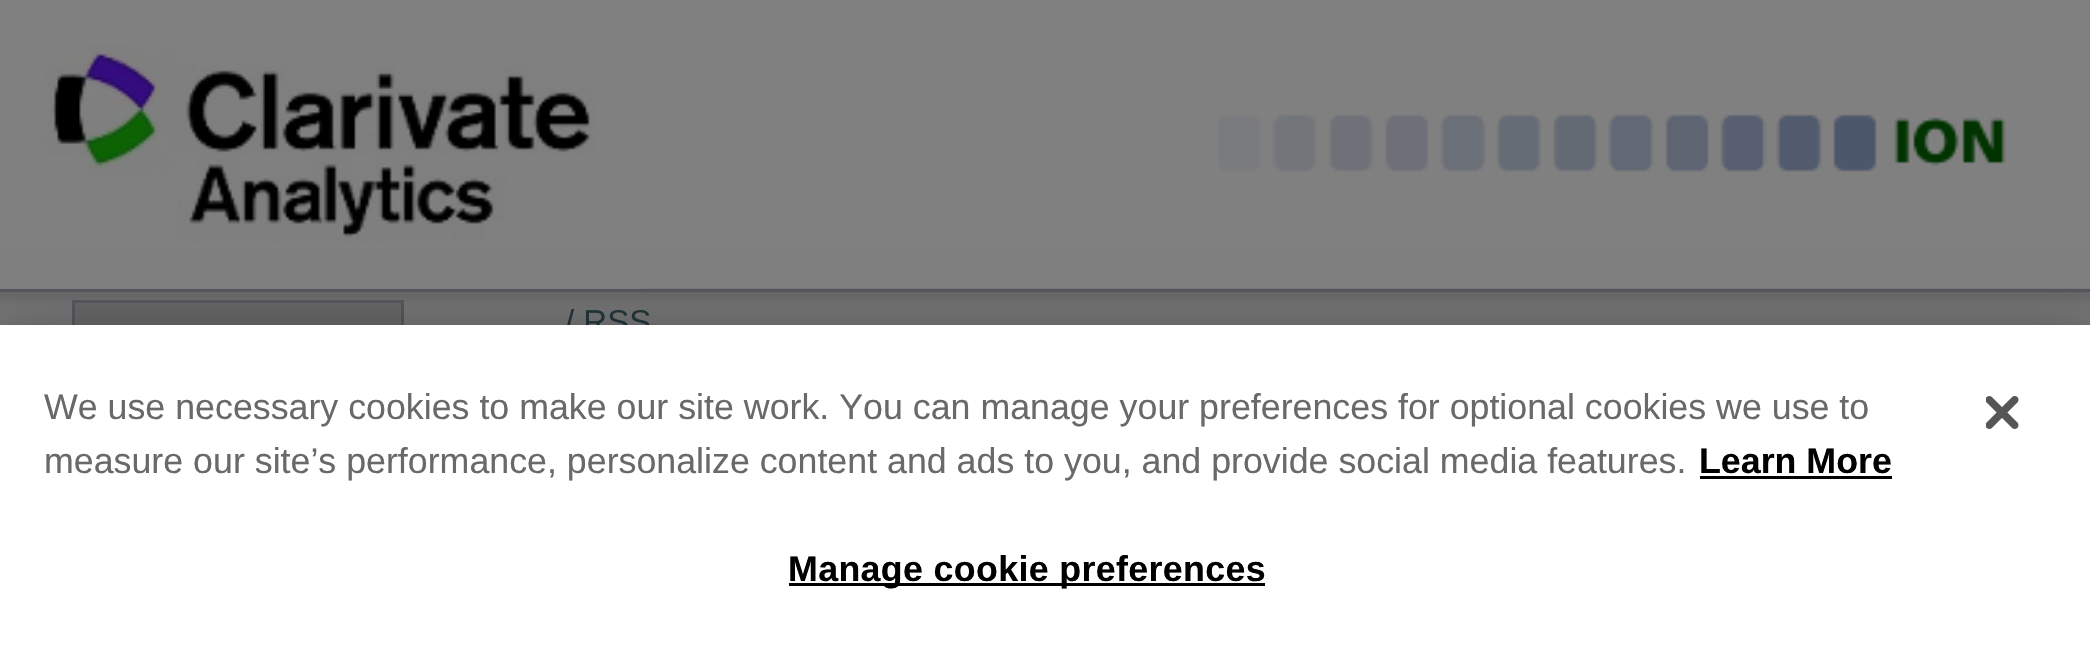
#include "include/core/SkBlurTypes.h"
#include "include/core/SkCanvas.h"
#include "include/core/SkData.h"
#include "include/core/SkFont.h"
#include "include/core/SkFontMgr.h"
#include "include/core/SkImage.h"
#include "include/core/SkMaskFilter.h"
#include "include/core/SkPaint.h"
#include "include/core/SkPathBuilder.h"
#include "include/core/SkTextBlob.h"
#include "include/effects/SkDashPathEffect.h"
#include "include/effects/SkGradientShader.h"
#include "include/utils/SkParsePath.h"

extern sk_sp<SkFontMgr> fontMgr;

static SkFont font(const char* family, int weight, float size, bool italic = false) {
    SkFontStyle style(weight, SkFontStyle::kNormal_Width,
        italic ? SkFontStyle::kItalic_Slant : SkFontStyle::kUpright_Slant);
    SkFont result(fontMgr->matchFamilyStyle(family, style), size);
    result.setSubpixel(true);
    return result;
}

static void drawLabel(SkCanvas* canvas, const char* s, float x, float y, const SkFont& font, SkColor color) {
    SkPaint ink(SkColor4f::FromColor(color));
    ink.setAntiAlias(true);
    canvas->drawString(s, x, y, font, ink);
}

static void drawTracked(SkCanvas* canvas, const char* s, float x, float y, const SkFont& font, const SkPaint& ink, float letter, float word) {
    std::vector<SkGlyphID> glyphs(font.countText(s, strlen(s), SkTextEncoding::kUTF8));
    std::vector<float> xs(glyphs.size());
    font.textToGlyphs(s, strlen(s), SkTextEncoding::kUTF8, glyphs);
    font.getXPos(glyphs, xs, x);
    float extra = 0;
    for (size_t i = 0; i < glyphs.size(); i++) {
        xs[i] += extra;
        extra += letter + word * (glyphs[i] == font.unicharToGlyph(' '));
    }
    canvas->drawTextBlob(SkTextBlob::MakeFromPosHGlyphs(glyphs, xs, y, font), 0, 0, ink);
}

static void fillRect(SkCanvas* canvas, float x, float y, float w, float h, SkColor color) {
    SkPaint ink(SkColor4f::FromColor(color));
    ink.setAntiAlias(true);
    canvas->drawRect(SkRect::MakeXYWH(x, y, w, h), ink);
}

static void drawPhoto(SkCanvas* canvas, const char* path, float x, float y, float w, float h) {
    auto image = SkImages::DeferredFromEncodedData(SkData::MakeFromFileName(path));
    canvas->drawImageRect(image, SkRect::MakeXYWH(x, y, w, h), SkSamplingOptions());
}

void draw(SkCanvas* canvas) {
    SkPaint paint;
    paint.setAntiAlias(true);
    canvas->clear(0xFF808080);
    drawPhoto(canvas, "assets/img3.png", 0, 288, 2090, 37);
    drawPhoto(canvas, "assets/img1.png", 0, 45, 644, 244);
    drawPhoto(canvas, "assets/img2.png", 1218, 114, 788, 58);
    fillRect(canvas, 0, 289, 2090, 3, 0xFF56565E);
    fillRect(canvas, 75, 303, 326, 22, 0xFF666666);
    paint.setStroke(true);
    paint.setStrokeWidth(3);
    paint.setColor(0xFF56565E);
    canvas->drawRect(SkRect::MakeXYWH(73.5f, 301.5f, 329, 41), paint);
    SkFont font1 = font("Liberation Sans", 400, 33);
    drawLabel(canvas, "/ RSS", 565, 333, font1, 0xFF22353B);
    paint.setStroke(false);
    paint.setColor(0x33000000);
    paint.setMaskFilter(SkMaskFilter::MakeBlur(kNormal_SkBlurStyle, 25));
    canvas->drawRect(SkRect::MakeXYWH(0, 325, 2090, 343), paint);
    paint.setMaskFilter(nullptr);
    fillRect(canvas, 0, 325, 2090, 343, 0xFFFFFFFF);
    SkFont font2 = font("Liberation Sans", 400, 35.77f);
    drawLabel(canvas, "We use necessary cookies to make our site work. You can manage your preferences for optional cookies we use to", 44, 419, font2, 0xFF696969);
    drawLabel(canvas, "measure our site’s performance, personalize content and ads to you, and provide social media features.", 44, 473, font2, 0xFF696969);
    SkFont font3 = font("Liberation Sans", 700, 35.77f);
    drawLabel(canvas, "Learn More", 1699, 473, font3, 0xFF000000);
    fillRect(canvas, 1700, 476, 192, 3, 0xFF000000);
    fillRect(canvas, 789, 583, 476, 3, 0xFF000000);
    paint.setColor(0xFF000000);
    drawTracked(canvas, "Manage cookie preferences", 788, 581, font3, paint, 0.35f, 0);
    drawPhoto(canvas, "assets/img4.png", 1986, 396, 33, 33);
}
